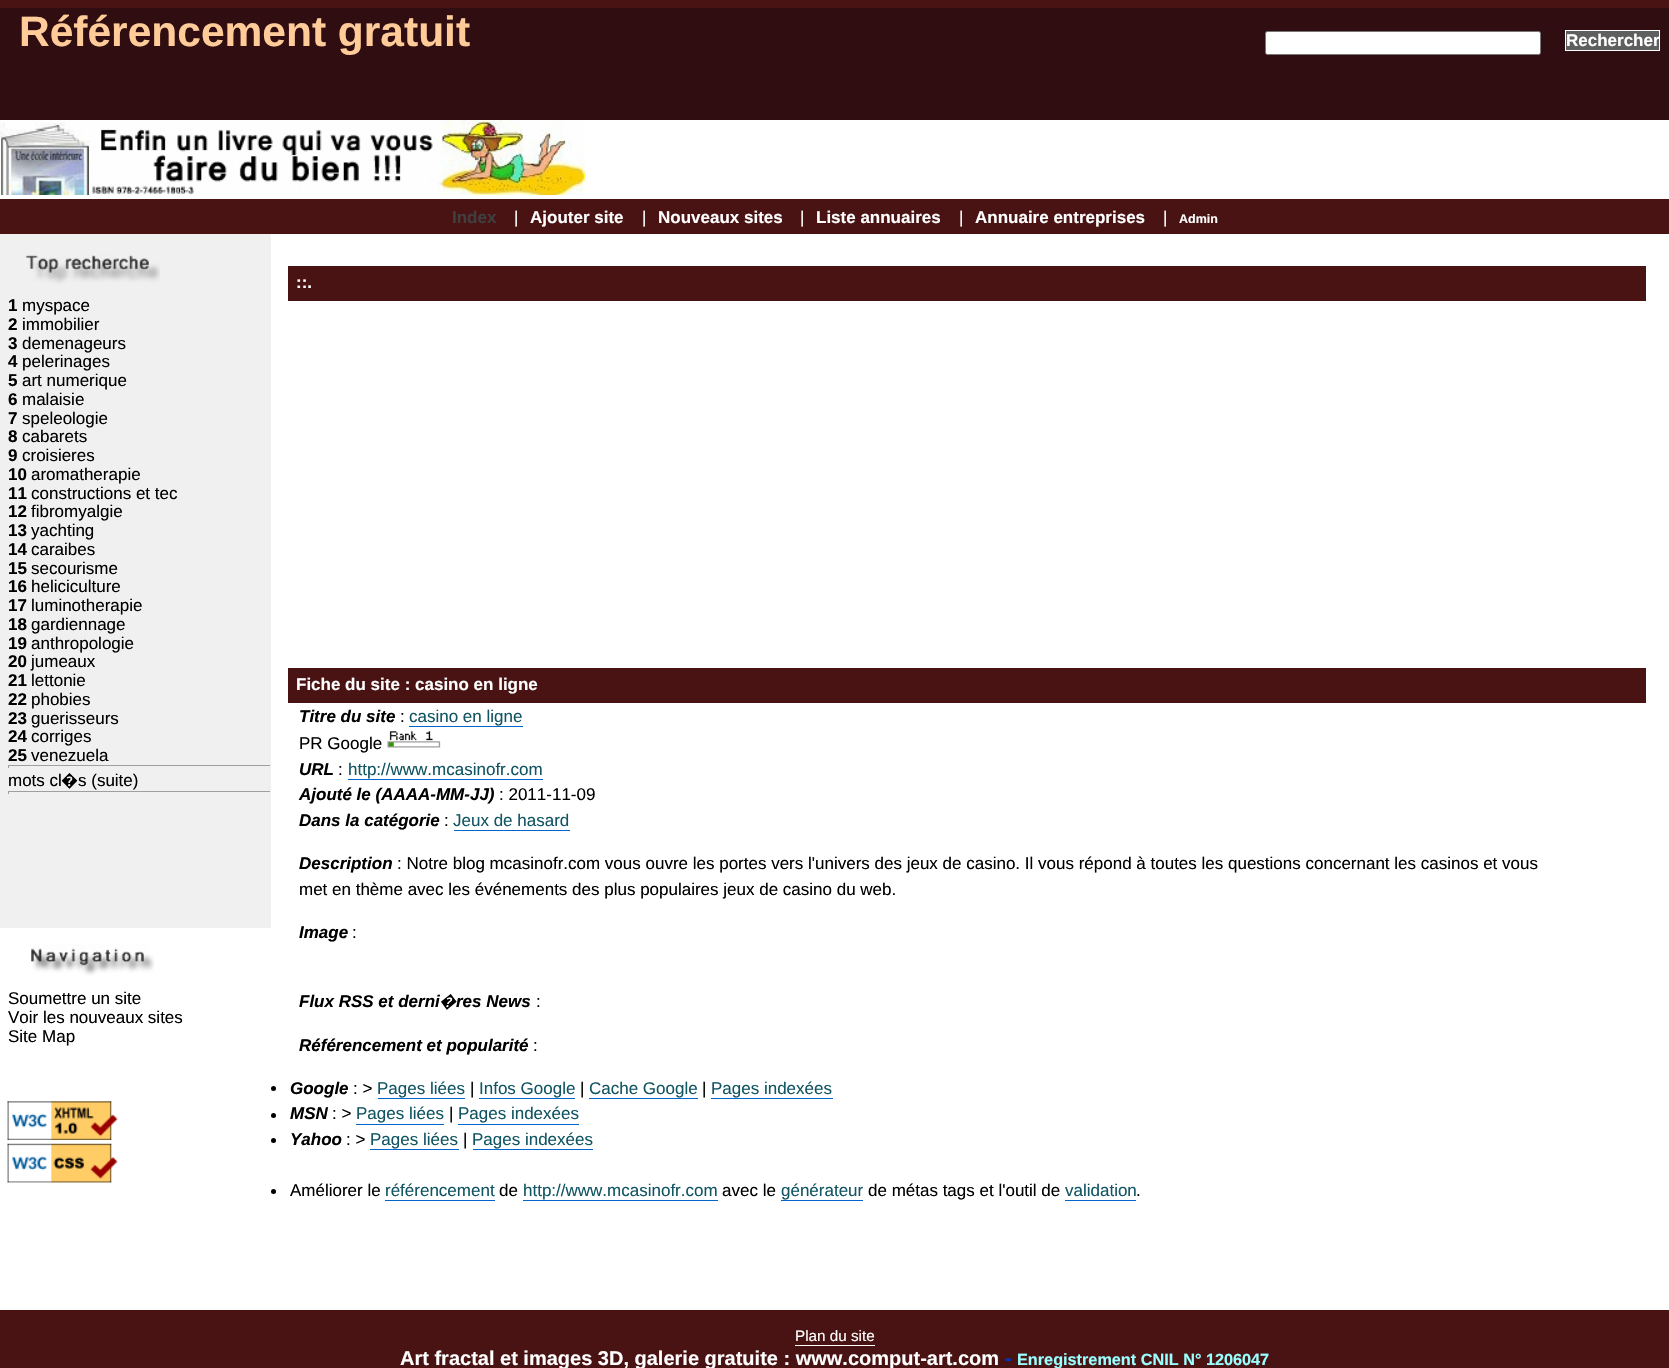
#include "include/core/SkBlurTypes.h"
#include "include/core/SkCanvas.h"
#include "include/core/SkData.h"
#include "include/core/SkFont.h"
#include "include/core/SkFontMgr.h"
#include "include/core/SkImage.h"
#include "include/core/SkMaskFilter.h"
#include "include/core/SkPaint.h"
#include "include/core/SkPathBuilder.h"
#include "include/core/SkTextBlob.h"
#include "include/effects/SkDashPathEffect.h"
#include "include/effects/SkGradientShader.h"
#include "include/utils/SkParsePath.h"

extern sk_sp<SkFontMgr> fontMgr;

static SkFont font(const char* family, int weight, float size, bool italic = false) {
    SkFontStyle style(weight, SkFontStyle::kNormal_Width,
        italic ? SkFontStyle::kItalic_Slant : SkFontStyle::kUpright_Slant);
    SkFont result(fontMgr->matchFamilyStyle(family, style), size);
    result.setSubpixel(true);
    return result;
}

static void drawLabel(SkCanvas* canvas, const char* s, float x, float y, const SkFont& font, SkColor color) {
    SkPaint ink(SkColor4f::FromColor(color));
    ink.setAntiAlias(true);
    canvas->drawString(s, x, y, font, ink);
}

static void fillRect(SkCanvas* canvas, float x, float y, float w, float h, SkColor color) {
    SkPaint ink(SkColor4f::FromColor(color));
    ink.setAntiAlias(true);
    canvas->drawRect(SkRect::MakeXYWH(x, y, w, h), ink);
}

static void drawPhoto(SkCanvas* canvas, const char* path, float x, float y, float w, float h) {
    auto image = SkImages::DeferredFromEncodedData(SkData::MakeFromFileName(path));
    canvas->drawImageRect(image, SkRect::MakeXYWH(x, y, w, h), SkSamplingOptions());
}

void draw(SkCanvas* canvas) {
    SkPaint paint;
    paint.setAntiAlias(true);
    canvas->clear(0xFFFFFFFF);
    fillRect(canvas, 0, 0, 1669, 8, 0xFF4A1313);
    fillRect(canvas, 0, 8, 1669, 112, 0xFF2F0D10);
    SkFont font1 = font("Liberation Sans", 700, 42.5f);
    drawLabel(canvas, "Référencement gratuit", 19, 46, font1, 0xFFFFCC99);
    paint.setColor(0xFFFFFFFF);
    canvas->drawRoundRect(SkRect::MakeXYWH(1265.5f, 31.5f, 275, 23), 2, 2, paint);
    paint.setStroke(true);
    paint.setStrokeWidth(1);
    paint.setColor(0xFF767676);
    canvas->drawRoundRect(SkRect::MakeXYWH(1265.5f, 31.5f, 275, 23), 2, 2, paint);
    paint.setStroke(false);
    paint.setColor(0xFF5F5F5F);
    canvas->drawRect(SkRect::MakeXYWH(1565.5f, 30.5f, 94, 20), paint);
    paint.setStroke(true);
    paint.setColor(0xFFFFFFFF);
    canvas->drawRect(SkRect::MakeXYWH(1565.5f, 30.5f, 94, 20), paint);
    SkFont font2 = font("Liberation Sans", 700, 17);
    drawLabel(canvas, "Rechercher", 1566, 46, font2, 0xFFFFFFFF);
    drawPhoto(canvas, "assets/img1.png", 0, 120, 585, 75);
    fillRect(canvas, 0, 199, 1669, 35, 0xFF4A1313);
    drawLabel(canvas, "Index", 452, 223, font2, 0xFF3F3F3F);
    SkFont font3 = font("Liberation Sans", 400, 17);
    drawLabel(canvas, "|", 514, 223, font3, 0xFFFFFFFF);
    drawLabel(canvas, "Ajouter site", 530, 223, font2, 0xFFFFFFFF);
    drawLabel(canvas, "|", 642, 223, font3, 0xFFFFFFFF);
    drawLabel(canvas, "Nouveaux sites", 658, 223, font2, 0xFFFFFFFF);
    drawLabel(canvas, "|", 800, 223, font3, 0xFFFFFFFF);
    drawLabel(canvas, "Liste annuaires", 816, 223, font2, 0xFFFFFFFF);
    drawLabel(canvas, "|", 959, 223, font3, 0xFFFFFFFF);
    drawLabel(canvas, "Annuaire entreprises", 975, 223, font2, 0xFFFFFFFF);
    drawLabel(canvas, "|", 1163, 223, font3, 0xFFFFFFFF);
    SkFont font4 = font("Liberation Sans", 700, 12.5f);
    drawLabel(canvas, "Admin", 1179, 223, font4, 0xFFFFFFFF);
    fillRect(canvas, 0, 234, 271, 694, 0xFFF0F0F0);
    drawPhoto(canvas, "assets/img2.png", 25, 254, 135, 30);
    drawLabel(canvas, "1", 8, 311, font2, 0xFF000000);
    drawLabel(canvas, "myspace", 22, 311, font3, 0xFF000000);
    drawLabel(canvas, "2", 8, 330, font2, 0xFF000000);
    drawLabel(canvas, "immobilier", 22, 330, font3, 0xFF000000);
    drawLabel(canvas, "3", 8, 349, font2, 0xFF000000);
    drawLabel(canvas, "demenageurs", 22, 349, font3, 0xFF000000);
    drawLabel(canvas, "4", 8, 367, font2, 0xFF000000);
    drawLabel(canvas, "pelerinages", 22, 367, font3, 0xFF000000);
    drawLabel(canvas, "5", 8, 386, font2, 0xFF000000);
    drawLabel(canvas, "art numerique", 22, 386, font3, 0xFF000000);
    drawLabel(canvas, "6", 8, 405, font2, 0xFF000000);
    drawLabel(canvas, "malaisie", 22, 405, font3, 0xFF000000);
    drawLabel(canvas, "7", 8, 424, font2, 0xFF000000);
    drawLabel(canvas, "speleologie", 22, 424, font3, 0xFF000000);
    drawLabel(canvas, "8", 8, 442, font2, 0xFF000000);
    drawLabel(canvas, "cabarets", 22, 442, font3, 0xFF000000);
    drawLabel(canvas, "9", 8, 461, font2, 0xFF000000);
    drawLabel(canvas, "croisieres", 22, 461, font3, 0xFF000000);
    drawLabel(canvas, "10", 8, 480, font2, 0xFF000000);
    drawLabel(canvas, "aromatherapie", 31, 480, font3, 0xFF000000);
    drawLabel(canvas, "11", 8, 499, font2, 0xFF000000);
    drawLabel(canvas, "constructions et tec", 31, 499, font3, 0xFF000000);
    drawLabel(canvas, "12", 8, 517, font2, 0xFF000000);
    drawLabel(canvas, "fibromyalgie", 31, 517, font3, 0xFF000000);
    drawLabel(canvas, "13", 8, 536, font2, 0xFF000000);
    drawLabel(canvas, "yachting", 31, 536, font3, 0xFF000000);
    drawLabel(canvas, "14", 8, 555, font2, 0xFF000000);
    drawLabel(canvas, "caraibes", 31, 555, font3, 0xFF000000);
    drawLabel(canvas, "15", 8, 574, font2, 0xFF000000);
    drawLabel(canvas, "secourisme", 31, 574, font3, 0xFF000000);
    drawLabel(canvas, "16", 8, 592, font2, 0xFF000000);
    drawLabel(canvas, "heliciculture", 31, 592, font3, 0xFF000000);
    drawLabel(canvas, "17", 8, 611, font2, 0xFF000000);
    drawLabel(canvas, "luminotherapie", 31, 611, font3, 0xFF000000);
    drawLabel(canvas, "18", 8, 630, font2, 0xFF000000);
    drawLabel(canvas, "gardiennage", 31, 630, font3, 0xFF000000);
    drawLabel(canvas, "19", 8, 649, font2, 0xFF000000);
    drawLabel(canvas, "anthropologie", 31, 649, font3, 0xFF000000);
    drawLabel(canvas, "20", 8, 667, font2, 0xFF000000);
    drawLabel(canvas, "jumeaux", 31, 667, font3, 0xFF000000);
    drawLabel(canvas, "21", 8, 686, font2, 0xFF000000);
    drawLabel(canvas, "lettonie", 31, 686, font3, 0xFF000000);
    drawLabel(canvas, "22", 8, 705, font2, 0xFF000000);
    drawLabel(canvas, "phobies", 31, 705, font3, 0xFF000000);
    drawLabel(canvas, "23", 8, 724, font2, 0xFF000000);
    drawLabel(canvas, "guerisseurs", 31, 724, font3, 0xFF000000);
    drawLabel(canvas, "24", 8, 742, font2, 0xFF000000);
    drawLabel(canvas, "corriges", 31, 742, font3, 0xFF000000);
    drawLabel(canvas, "25", 8, 761, font2, 0xFF000000);
    drawLabel(canvas, "venezuela", 31, 761, font3, 0xFF000000);
    fillRect(canvas, 8, 765, 263, 1, 0xFF9F9F9F);
    fillRect(canvas, 270, 765, 1, 3, 0xFFEEEEEE);
    fillRect(canvas, 8, 765, 1, 3, 0xFF9F9F9F);
    drawLabel(canvas, "mots cl", 8, 786, font3, 0xFF000000);
    SkFont font5 = font("Noto Sans", 400, 17);
    drawLabel(canvas, "�", 61, 786, font5, 0xFF000000);
    drawLabel(canvas, "s (suite)", 78, 786, font3, 0xFF000000);
    fillRect(canvas, 8, 791, 263, 1, 0xFF9F9F9F);
    fillRect(canvas, 270, 791, 1, 3, 0xFFEEEEEE);
    fillRect(canvas, 8, 791, 1, 3, 0xFF9F9F9F);
    fillRect(canvas, 288, 266, 1358, 35, 0xFF4A1313);
    drawLabel(canvas, "::.", 296, 288, font2, 0xFFFFFFFF);
    fillRect(canvas, 288, 668, 1358, 35, 0xFF4A1313);
    drawLabel(canvas, "Fiche du site : casino en ligne", 296, 690, font2, 0xFFFFFFFF);
    SkFont font6 = font("Liberation Sans", 700, 17, true);
    drawLabel(canvas, "Titre du site", 299, 722, font6, 0xFF000000);
    drawLabel(canvas, ":", 400, 722, font3, 0xFF000000);
    drawLabel(canvas, "casino en ligne", 409, 722, font3, 0xFF125563);
    fillRect(canvas, 409, 726, 114, 1, 0xFF0066CC);
    drawLabel(canvas, "PR Google", 299, 749, font3, 0xFF000000);
    drawPhoto(canvas, "assets/img3.png", 387, 731, 54, 17);
    drawLabel(canvas, "URL", 299, 775, font6, 0xFF000000);
    drawLabel(canvas, ":", 338, 775, font3, 0xFF000000);
    drawLabel(canvas, "http://www.mcasinofr.com", 348, 775, font3, 0xFF125563);
    fillRect(canvas, 348, 779, 195, 1, 0xFF0066CC);
    drawLabel(canvas, "Ajouté le (AAAA-MM-JJ)", 299, 800, font6, 0xFF000000);
    drawLabel(canvas, ": 2011-11-09", 499, 800, font3, 0xFF000000);
    drawLabel(canvas, "Dans la catégorie", 299, 826, font6, 0xFF000000);
    drawLabel(canvas, ":", 444, 826, font3, 0xFF000000);
    drawLabel(canvas, "Jeux de hasard", 453, 826, font3, 0xFF125563);
    fillRect(canvas, 454, 830, 116, 1, 0xFF0066CC);
    drawLabel(canvas, "Description", 299, 869, font6, 0xFF000000);
    drawLabel(canvas, ": Notre blog mcasinofr.com vous ouvre les portes vers l'univers des jeux de casino. Il vous répond à toutes les questions concernant les casinos et vous", 397, 869, font3, 0xFF000000);
    drawLabel(canvas, "met en thème avec les événements des plus populaires jeux de casino du web.", 299, 895, font3, 0xFF000000);
    drawLabel(canvas, "Image", 299, 938, font6, 0xFF000000);
    drawLabel(canvas, ":", 352, 938, font3, 0xFF000000);
    drawLabel(canvas, "Flux RSS et derni", 299, 1007, font6, 0xFF000000);
    SkFont font7 = font("Noto Sans", 700, 17, true);
    drawLabel(canvas, "�", 439, 1007, font7, 0xFF000000);
    drawLabel(canvas, "res News", 456, 1007, font6, 0xFF000000);
    drawLabel(canvas, ":", 536, 1007, font3, 0xFF000000);
    drawLabel(canvas, "Référencement et popularité", 299, 1051, font6, 0xFF000000);
    drawLabel(canvas, ":", 533, 1051, font3, 0xFF000000);
    paint.setStroke(false);
    paint.setColor(0xFF000000);
    canvas->drawCircle(273.5f, 1088.5f, 2.5f, paint);
    drawLabel(canvas, "Google", 290, 1094, font6, 0xFF000000);
    drawLabel(canvas, ": >", 353, 1094, font3, 0xFF000000);
    drawLabel(canvas, "Pages liées", 377, 1094, font3, 0xFF125563);
    fillRect(canvas, 378, 1098, 87, 1, 0xFF0066CC);
    drawLabel(canvas, "|", 470, 1094, font3, 0xFF000000);
    drawLabel(canvas, "Infos Google", 479, 1094, font3, 0xFF125563);
    fillRect(canvas, 479, 1098, 96, 1, 0xFF0066CC);
    drawLabel(canvas, "|", 580, 1094, font3, 0xFF000000);
    drawLabel(canvas, "Cache Google", 589, 1094, font3, 0xFF125563);
    fillRect(canvas, 589, 1098, 109, 1, 0xFF0066CC);
    drawLabel(canvas, "|", 702, 1094, font3, 0xFF000000);
    drawLabel(canvas, "Pages indexées", 711, 1094, font3, 0xFF125563);
    fillRect(canvas, 711, 1098, 122, 1, 0xFF0066CC);
    canvas->drawCircle(273.5f, 1115.5f, 2.5f, paint);
    drawLabel(canvas, "MSN", 290, 1119, font6, 0xFF000000);
    drawLabel(canvas, ": >", 332, 1119, font3, 0xFF000000);
    drawLabel(canvas, "Pages liées", 356, 1119, font3, 0xFF125563);
    fillRect(canvas, 356, 1124, 88, 1, 0xFF0066CC);
    drawLabel(canvas, "|", 449, 1119, font3, 0xFF000000);
    drawLabel(canvas, "Pages indexées", 458, 1119, font3, 0xFF125563);
    fillRect(canvas, 458, 1124, 121, 1, 0xFF0066CC);
    canvas->drawCircle(273.5f, 1140.5f, 2.5f, paint);
    drawLabel(canvas, "Yahoo", 290, 1145, font6, 0xFF000000);
    drawLabel(canvas, ": >", 346, 1145, font3, 0xFF000000);
    drawLabel(canvas, "Pages liées", 370, 1145, font3, 0xFF125563);
    fillRect(canvas, 370, 1149, 89, 1, 0xFF0066CC);
    drawLabel(canvas, "|", 463, 1145, font3, 0xFF000000);
    drawLabel(canvas, "Pages indexées", 472, 1145, font3, 0xFF125563);
    fillRect(canvas, 473, 1149, 120, 1, 0xFF0066CC);
    canvas->drawCircle(273.5f, 1191.5f, 2.5f, paint);
    drawLabel(canvas, "Améliorer le", 290, 1196, font3, 0xFF000000);
    drawLabel(canvas, "référencement", 385, 1196, font3, 0xFF125563);
    fillRect(canvas, 385, 1200, 110, 1, 0xFF0066CC);
    drawLabel(canvas, "de", 499, 1196, font3, 0xFF000000);
    drawLabel(canvas, "http://www.mcasinofr.com", 523, 1196, font3, 0xFF125563);
    fillRect(canvas, 523, 1200, 195, 1, 0xFF0066CC);
    drawLabel(canvas, "avec le", 722, 1196, font3, 0xFF000000);
    drawLabel(canvas, "générateur", 781, 1196, font3, 0xFF125563);
    fillRect(canvas, 781, 1200, 82, 1, 0xFF0066CC);
    drawLabel(canvas, "de métas tags et l'outil de", 868, 1196, font3, 0xFF000000);
    drawLabel(canvas, "validation", 1065, 1196, font3, 0xFF125563);
    fillRect(canvas, 1065, 1200, 71, 1, 0xFF0066CC);
    drawLabel(canvas, ".", 1136, 1196, font3, 0xFF000000);
    drawPhoto(canvas, "assets/img4.png", 31, 944, 124, 32);
    drawLabel(canvas, "Soumettre un site", 8, 1004, font3, 0xFF000000);
    drawLabel(canvas, "Voir les nouveaux sites", 8, 1023, font3, 0xFF000000);
    drawLabel(canvas, "Site Map", 8, 1042, font3, 0xFF000000);
    drawPhoto(canvas, "assets/img5.png", 7, 1101, 111, 39);
    drawPhoto(canvas, "assets/img6.png", 7, 1143, 111, 40);
    fillRect(canvas, 0, 1310, 1669, 58, 0xFF4A1313);
    SkFont font8 = font("Liberation Sans", 400, 15.25f);
    drawLabel(canvas, "Plan du site", 795, 1341, font8, 0xFFFFFFFF);
    fillRect(canvas, 795, 1345, 80, 1, 0xFFFFFFFF);
    SkFont font9 = font("Liberation Sans", 700, 20);
    drawLabel(canvas, "Art fractal et images 3D, galerie gratuite : www.comput-art.com", 400, 1365, font9, 0xFFFFFFFF);
    drawLabel(canvas, "-", 1005, 1365, font9, 0xFF0033CC);
    SkFont font10 = font("Liberation Sans", 700, 16.25f);
    drawLabel(canvas, "Enregistrement CNIL N° 1206047", 1017, 1365, font10, 0xFF99FFFF);
}
